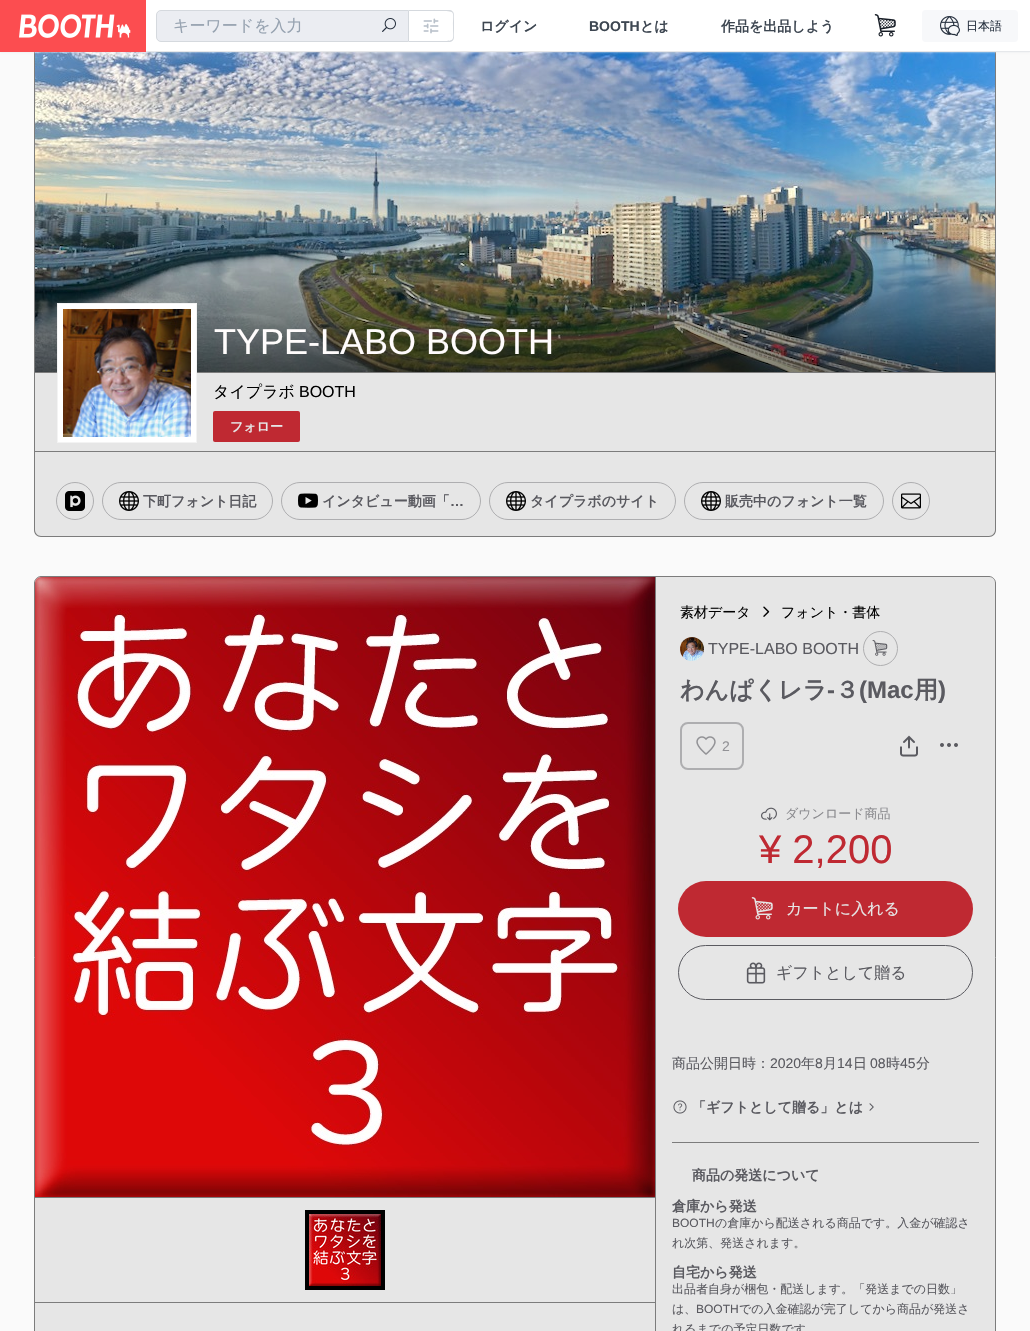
#include "include/core/SkBlurTypes.h"
#include "include/core/SkCanvas.h"
#include "include/core/SkData.h"
#include "include/core/SkFont.h"
#include "include/core/SkFontMgr.h"
#include "include/core/SkImage.h"
#include "include/core/SkMaskFilter.h"
#include "include/core/SkPaint.h"
#include "include/core/SkPathBuilder.h"
#include "include/core/SkTextBlob.h"
#include "include/effects/SkDashPathEffect.h"
#include "include/effects/SkGradientShader.h"
#include "include/utils/SkParsePath.h"

extern sk_sp<SkFontMgr> fontMgr;

static SkFont font(const char* family, int weight, float size, bool italic = false) {
    SkFontStyle style(weight, SkFontStyle::kNormal_Width,
        italic ? SkFontStyle::kItalic_Slant : SkFontStyle::kUpright_Slant);
    SkFont result(fontMgr->matchFamilyStyle(family, style), size);
    result.setSubpixel(true);
    return result;
}

static void drawLabel(SkCanvas* canvas, const char* s, float x, float y, const SkFont& font, SkColor color) {
    SkPaint ink(SkColor4f::FromColor(color));
    ink.setAntiAlias(true);
    canvas->drawString(s, x, y, font, ink);
}

static void fillRect(SkCanvas* canvas, float x, float y, float w, float h, SkColor color) {
    SkPaint ink(SkColor4f::FromColor(color));
    ink.setAntiAlias(true);
    canvas->drawRect(SkRect::MakeXYWH(x, y, w, h), ink);
}

static void fillRRect(SkCanvas* canvas, float x, float y, float w, float h, float radius, SkColor color) {
    SkPaint ink(SkColor4f::FromColor(color));
    ink.setAntiAlias(true);
    canvas->drawRoundRect(SkRect::MakeXYWH(x, y, w, h), radius, radius, ink);
}

static void drawPhoto(SkCanvas* canvas, const char* path, float x, float y, float w, float h) {
    auto image = SkImages::DeferredFromEncodedData(SkData::MakeFromFileName(path));
    canvas->drawImageRect(image, SkRect::MakeXYWH(x, y, w, h), SkSamplingOptions());
}

static SkPath parsePath(const char* data, bool evenOdd = false) {
    SkPath result = *SkParsePath::FromSVGString(data);
    if (evenOdd) result.setFillType(SkPathFillType::kEvenOdd);
    return result;
}

void draw(SkCanvas* canvas) {
    SkPaint paint;
    paint.setAntiAlias(true);
    canvas->clear(0xFFFAFAFA);
    paint.setColor(0xFFE6E6E6);
    canvas->drawPath(parsePath("M35-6H995V530C995 533.5 992.5 536 989 536H41C37.5 536 35 533.5 35 530Z"), paint);
    paint.setColor(0xFF7C7C7C);
    canvas->drawPath(parsePath("M34-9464H996V530C996 534 993 537 989 537H41C37 537 34 534 34 530ZM35-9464H995V530C995 533 992 536 989 536H41C38 536 35 533 35 530Z", true), paint);
    drawPhoto(canvas, "assets/img6.png", 35, 52, 960, 320);
    paint.setColor(0xFFE6E8EB);
    paint.setMaskFilter(SkMaskFilter::MakeBlur(kNormal_SkBlurStyle, 1));
    canvas->drawRect(SkRect::MakeXYWH(0, 0, 1030, 52), paint);
    paint.setMaskFilter(nullptr);
    fillRect(canvas, 146, 0, 884, 51, 0xFFFFFFFF);
    fillRect(canvas, 995, 51, 35, 1, 0xFFE6E8EB);
    drawPhoto(canvas, "assets/img1.png", 0, 0, 146, 52);
    paint.setColor(0xFFEBEDF2);
    canvas->drawPath(parsePath("M161 10.5H408.5V41.5H161C158.5 41.5 156.5 39.5 156.5 37V15C156.5 12.5 158.5 10.5 161 10.5Z"), paint);
    paint.setStroke(true);
    paint.setStrokeWidth(1);
    paint.setColor(0xFFD5D9DE);
    canvas->drawPath(parsePath("M161 10.5H408.5V41.5H161C158.5 41.5 156.5 39.5 156.5 37V15C156.5 12.5 158.5 10.5 161 10.5Z"), paint);
    SkFont font1 = font("WenQuanYi Zen Hei", 500, 16);
    drawLabel(canvas, "キーワードを入力", 173, 31, font1, 0xFF96A2B0);
    drawPhoto(canvas, "assets/img2.png", 382, 18, 14, 14);
    paint.setStroke(false);
    canvas->drawPath(parsePath("M409 10H449C452 10 454 12 454 15V37C454 40 452 42 449 42H409ZM409 11H442C456 11 453 12 453 26C453 40 456 41 442 41H409Z", true), paint);
    drawPhoto(canvas, "assets/img3.png", 423, 18, 16, 16);
    SkFont font2 = font("WenQuanYi Zen Hei", 700, 14);
    drawLabel(canvas, "ログイン", 480, 31, font2, 0xFF3D4651);
    SkFont font3 = font("Liberation Sans", 700, 14);
    drawLabel(canvas, "BOOTH", 589, 31, font3, 0xFF3D4651);
    drawLabel(canvas, "とは", 640, 31, font2, 0xFF3D4651);
    drawLabel(canvas, "作品を出品しよう", 721, 31, font2, 0xFF3D4651);
    drawPhoto(canvas, "assets/img4.png", 874, 14, 22, 23);
    fillRRect(canvas, 922, 10, 96, 32, 4, 0xFFF7F8FA);
    drawPhoto(canvas, "assets/img5.png", 940, 16, 20, 20);
    SkFont font4 = font("WenQuanYi Zen Hei", 500, 12);
    drawLabel(canvas, "日本語", 966, 30, font4, 0xFF252F3D);
    SkFont font5 = font("Liberation Sans", 400, 36);
    drawLabel(canvas, "TYPE-LABO BOOTH", 214, 354, font5, 0xFFFFFCFC);
    fillRect(canvas, 34, 372, 962, 1, 0xFF7C7C7C);
    paint.setColor(0xFFFFFFFF);
    canvas->drawRect(SkRect::MakeXYWH(57.5f, 303.5f, 139, 139), paint);
    paint.setStroke(true);
    paint.setColor(0xFFF3F3F3);
    canvas->drawRect(SkRect::MakeXYWH(57.5f, 303.5f, 139, 139), paint);
    drawPhoto(canvas, "assets/img7.png", 63, 309, 128, 128);
    drawLabel(canvas, "タイプラボ", 213, 397, font1, 0xFF000000);
    SkFont font6 = font("Liberation Sans", 400, 16);
    drawLabel(canvas, "BOOTH", 299, 397, font6, 0xFF000000);
    fillRRect(canvas, 213, 411, 87, 31, 2, 0xFFBF2932);
    SkFont font7 = font("WenQuanYi Zen Hei", 700, 13);
    drawLabel(canvas, "フォロー", 230, 431, font7, 0xFFE6E6E6);
    fillRect(canvas, 34, 451, 962, 1, 0xFF7C7C7C);
    paint.setColor(0xFFAEAEB0);
    canvas->drawCircle(75, 501, 18.5f, paint);
    drawPhoto(canvas, "assets/img8.png", 65, 491, 20, 20);
    canvas->drawRoundRect(SkRect::MakeXYWH(102.5f, 482.5f, 170, 37), 18.5f, 18.5f, paint);
    drawPhoto(canvas, "assets/img9.png", 119, 491, 20, 20);
    drawLabel(canvas, "下町フォント日記", 143, 506, font2, 0xFF5A5A60);
    canvas->drawRoundRect(SkRect::MakeXYWH(281.5f, 482.5f, 199, 37), 18.5f, 18.5f, paint);
    drawPhoto(canvas, "assets/img10.png", 298, 493, 20, 15);
    drawLabel(canvas, "インタビュー動画「", 322, 506, font2, 0xFF5A5A60);
    drawLabel(canvas, "…", 450, 506, font3, 0xFF5A5A60);
    canvas->drawRoundRect(SkRect::MakeXYWH(489.5f, 482.5f, 186, 37), 18.5f, 18.5f, paint);
    drawPhoto(canvas, "assets/img9.png", 506, 491, 20, 20);
    drawLabel(canvas, "タイプラボのサイト", 530, 506, font2, 0xFF5A5A60);
    canvas->drawRoundRect(SkRect::MakeXYWH(684.5f, 482.5f, 199, 37), 18.5f, 18.5f, paint);
    drawPhoto(canvas, "assets/img9.png", 701, 491, 20, 20);
    drawLabel(canvas, "販売中のフォント一覧", 725, 506, font2, 0xFF5A5A60);
    canvas->drawCircle(911, 501, 18.5f, paint);
    drawPhoto(canvas, "assets/img11.png", 901, 493, 20, 16);
    paint.setStroke(false);
    paint.setColor(0xFFE6E6E6);
    canvas->drawPath(parsePath("M41 576.5H989C992.5 576.5 995.5 579.5 995.5 583V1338.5H34.5V583C34.5 579.5 37.5 576.5 41 576.5Z"), paint);
    paint.setStroke(true);
    paint.setColor(0xFF7C7C7C);
    canvas->drawPath(parsePath("M41 576.5H989C992.5 576.5 995.5 579.5 995.5 583V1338.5H34.5V583C34.5 579.5 37.5 576.5 41 576.5Z"), paint);
    fillRect(canvas, 655, 577, 1, 754, 0xFF7C7C7C);
    drawPhoto(canvas, "assets/img12.png", 35, 577, 620, 620);
    fillRect(canvas, 35, 1197, 620, 1, 0xFF7C7C7C);
    paint.setStrokeWidth(4);
    paint.setColor(0xFF000000);
    canvas->drawRect(SkRect::MakeXYWH(307, 1212, 76, 76), paint);
    drawPhoto(canvas, "assets/img13.png", 309, 1214, 72, 72);
    fillRect(canvas, 35, 1302, 620, 1, 0xFF7C7C7C);
    SkFont font8 = font("WenQuanYi Zen Hei", 500, 14);
    drawLabel(canvas, "素材データ", 680, 617, font8, 0xFF000000);
    drawPhoto(canvas, "assets/img14.png", 763, 606, 7, 11);
    drawLabel(canvas, "フォント・書体", 781, 617, font8, 0xFF000000);
    drawPhoto(canvas, "assets/img15.png", 680, 637, 24, 24);
    drawLabel(canvas, "TYPE-LABO BOOTH", 708, 654, font6, 0xFF5A5A60);
    paint.setStrokeWidth(1);
    paint.setColor(0xFFAEAEB0);
    canvas->drawCircle(880.5f, 648.5f, 17, paint);
    drawPhoto(canvas, "assets/img16.png", 872, 640, 16, 16);
    SkFont font9 = font("WenQuanYi Zen Hei", 700, 24);
    drawLabel(canvas, "わんぱくレラ", 680, 698, font9, 0xFF5A5A60);
    SkFont font10 = font("Liberation Sans", 700, 24);
    drawLabel(canvas, "-", 827, 698, font10, 0xFF5A5A60);
    drawLabel(canvas, "３", 835, 698, font9, 0xFF5A5A60);
    drawLabel(canvas, "(Mac", 859, 698, font10, 0xFF5A5A60);
    drawLabel(canvas, "用", 914, 698, font9, 0xFF5A5A60);
    drawLabel(canvas, ")", 938, 698, font10, 0xFF5A5A60);
    paint.setStrokeWidth(2);
    canvas->drawRoundRect(SkRect::MakeXYWH(681, 723, 62, 46), 7, 7, paint);
    drawPhoto(canvas, "assets/img17.png", 696, 736, 20, 19);
    SkFont font11 = font("Liberation Sans", 400, 14);
    drawLabel(canvas, "2", 722, 751, font11, 0xFF929296);
    drawPhoto(canvas, "assets/img18.png", 900, 735, 18, 22);
    drawPhoto(canvas, "assets/img19.png", 940, 743, 18, 4);
    drawPhoto(canvas, "assets/img20.png", 761, 807, 16, 14);
    SkFont font12 = font("WenQuanYi Zen Hei", 500, 13);
    drawLabel(canvas, "ダウンロード商品", 785, 818, font12, 0xFF8A8A8E);
    SkFont font13 = font("Liberation Sans", 400, 40);
    drawLabel(canvas, "¥ 2,200", 759, 863, font13, 0xFFBF2932);
    fillRRect(canvas, 678, 881, 295, 56, 28, 0xFFBF2932);
    drawPhoto(canvas, "assets/img21.png", 751, 897, 22, 23);
    drawLabel(canvas, "カートに入れる", 786, 914, font1, 0xFFE6E6E6);
    paint.setStrokeWidth(1);
    paint.setColor(0xFF5A5A60);
    canvas->drawRoundRect(SkRect::MakeXYWH(678.5f, 945.5f, 294, 54), 27, 27, paint);
    drawPhoto(canvas, "assets/img22.png", 746, 962, 20, 22);
    drawLabel(canvas, "ギフトとして贈る", 776, 978, font1, 0xFF5A5A60);
    drawLabel(canvas, "商品公開日時：", 672, 1068, font8, 0xFF5A5A60);
    drawLabel(canvas, "2020", 770, 1068, font11, 0xFF5A5A60);
    drawLabel(canvas, "年", 801, 1068, font8, 0xFF5A5A60);
    drawLabel(canvas, "8", 815, 1068, font11, 0xFF5A5A60);
    drawLabel(canvas, "月", 823, 1068, font8, 0xFF5A5A60);
    drawLabel(canvas, "14", 837, 1068, font11, 0xFF5A5A60);
    drawLabel(canvas, "日", 853, 1068, font8, 0xFF5A5A60);
    drawLabel(canvas, "08", 870, 1068, font11, 0xFF5A5A60);
    drawLabel(canvas, "時", 886, 1068, font8, 0xFF5A5A60);
    drawLabel(canvas, "45", 900, 1068, font11, 0xFF5A5A60);
    drawLabel(canvas, "分", 916, 1068, font8, 0xFF5A5A60);
    drawPhoto(canvas, "assets/img23.png", 673, 1100, 14, 14);
    drawLabel(canvas, "「ギフトとして贈る」とは", 692, 1112, font2, 0xFF5A5A60);
    drawPhoto(canvas, "assets/img24.png", 869, 1103, 5, 8);
    fillRect(canvas, 672, 1142, 307, 1, 0xFF7C7C7C);
    drawLabel(canvas, "商品の発送について", 692, 1180, font2, 0xFF5A5A60);
    drawLabel(canvas, "倉庫から発送", 672, 1211, font2, 0xFF5A5A60);
    SkFont font14 = font("Liberation Sans", 400, 12);
    drawLabel(canvas, "BOOTH", 672, 1227, font14, 0xFF5A5A60);
    drawLabel(canvas, "の倉庫から配送される商品です。入金が確認さ", 715, 1227, font4, 0xFF5A5A60);
    drawLabel(canvas, "れ次第、発送されます。", 672, 1247, font4, 0xFF5A5A60);
    drawLabel(canvas, "自宅から発送", 672, 1277, font2, 0xFF5A5A60);
    drawLabel(canvas, "出品者自身が梱包・配送します。「発送までの日数」", 672, 1293, font4, 0xFF5A5A60);
    drawLabel(canvas, "は、", 672, 1313, font4, 0xFF5A5A60);
    drawLabel(canvas, "BOOTH", 696, 1313, font14, 0xFF5A5A60);
    drawLabel(canvas, "での入金確認が完了してから商品が発送さ", 739, 1313, font4, 0xFF5A5A60);
    drawLabel(canvas, "れるまでの予定日数です", 672, 1333, font4, 0xFF5A5A60);
}
